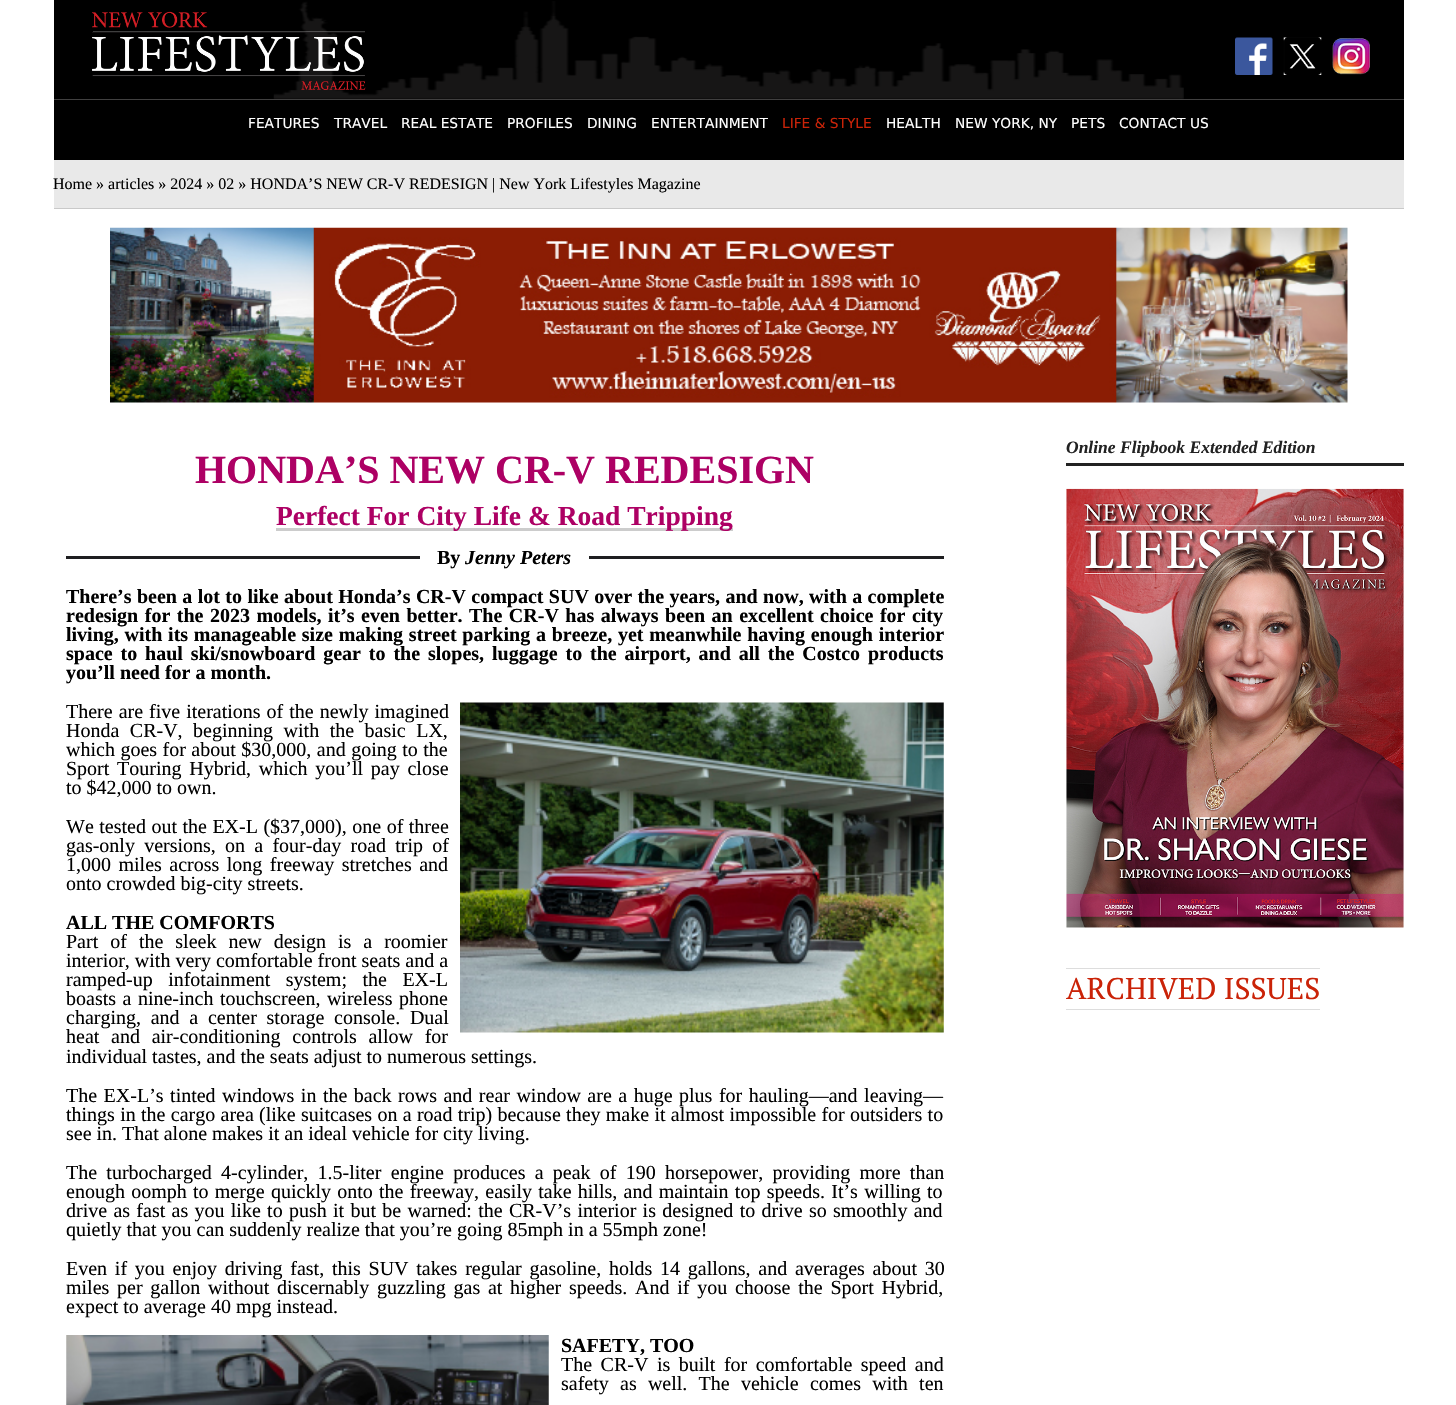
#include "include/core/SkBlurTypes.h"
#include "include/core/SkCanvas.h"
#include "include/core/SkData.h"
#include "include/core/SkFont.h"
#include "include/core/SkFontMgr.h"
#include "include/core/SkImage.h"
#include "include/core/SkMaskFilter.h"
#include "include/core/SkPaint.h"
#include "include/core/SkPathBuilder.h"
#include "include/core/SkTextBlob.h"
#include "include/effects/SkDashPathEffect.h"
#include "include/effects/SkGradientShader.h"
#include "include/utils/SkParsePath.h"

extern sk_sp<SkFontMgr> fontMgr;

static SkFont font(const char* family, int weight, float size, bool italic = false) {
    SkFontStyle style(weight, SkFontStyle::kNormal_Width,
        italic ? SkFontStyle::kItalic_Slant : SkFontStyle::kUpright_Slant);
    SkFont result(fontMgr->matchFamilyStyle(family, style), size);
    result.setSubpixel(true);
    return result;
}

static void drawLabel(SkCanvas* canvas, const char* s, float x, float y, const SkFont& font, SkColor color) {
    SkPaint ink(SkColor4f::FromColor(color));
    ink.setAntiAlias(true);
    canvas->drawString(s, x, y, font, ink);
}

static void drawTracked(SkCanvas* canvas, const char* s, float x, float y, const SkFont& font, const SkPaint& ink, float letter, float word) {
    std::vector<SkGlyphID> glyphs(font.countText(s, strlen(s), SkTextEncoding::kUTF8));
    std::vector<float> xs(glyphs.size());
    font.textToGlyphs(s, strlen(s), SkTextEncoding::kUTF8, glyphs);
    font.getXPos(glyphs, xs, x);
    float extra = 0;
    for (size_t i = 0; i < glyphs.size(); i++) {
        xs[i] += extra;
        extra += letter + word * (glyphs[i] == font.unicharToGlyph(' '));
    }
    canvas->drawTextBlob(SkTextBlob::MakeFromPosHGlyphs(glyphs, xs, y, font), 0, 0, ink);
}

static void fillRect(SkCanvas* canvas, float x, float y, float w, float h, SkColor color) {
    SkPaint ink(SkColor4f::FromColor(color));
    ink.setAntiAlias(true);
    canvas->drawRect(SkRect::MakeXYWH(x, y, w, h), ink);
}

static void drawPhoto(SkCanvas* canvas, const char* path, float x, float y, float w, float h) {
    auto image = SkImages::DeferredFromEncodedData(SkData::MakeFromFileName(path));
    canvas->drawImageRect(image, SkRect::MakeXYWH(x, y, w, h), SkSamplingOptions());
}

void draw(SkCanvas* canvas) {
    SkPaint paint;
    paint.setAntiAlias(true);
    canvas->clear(0xFFFFFFFF);
    fillRect(canvas, 54, 0, 1350, 99, 0xFF000000);
    drawPhoto(canvas, "assets/img1.png", 273, 1, 911, 98);
    drawPhoto(canvas, "assets/img2.png", 92, 11, 274, 79);
    drawPhoto(canvas, "assets/img3.png", 1235, 37, 38, 38);
    drawPhoto(canvas, "assets/img4.png", 1283, 37, 39, 38);
    drawPhoto(canvas, "assets/img5.png", 1332, 38, 38, 37);
    fillRect(canvas, 54, 100, 1350, 60, 0xFF000000);
    fillRect(canvas, 54, 99, 1350, 1, 0xFF414040);
    SkFont font1 = font("DejaVu Sans", 400, 13.75f);
    drawLabel(canvas, "FEATURES", 248, 128, font1, 0xFFFFFFFF);
    drawLabel(canvas, "TRAVEL", 334, 128, font1, 0xFFFFFFFF);
    drawLabel(canvas, "REAL ESTATE", 401, 128, font1, 0xFFFFFFFF);
    drawLabel(canvas, "PROFILES", 507, 128, font1, 0xFFFFFFFF);
    drawLabel(canvas, "DINING", 587, 128, font1, 0xFFFFFFFF);
    drawLabel(canvas, "ENTERTAINMENT", 651, 128, font1, 0xFFFFFFFF);
    drawLabel(canvas, "LIFE & STYLE", 782, 128, font1, 0xFFCA2308);
    drawLabel(canvas, "HEALTH", 886, 128, font1, 0xFFFFFFFF);
    drawLabel(canvas, "NEW YORK, NY", 955, 128, font1, 0xFFFFFFFF);
    drawLabel(canvas, "PETS", 1071, 128, font1, 0xFFFFFFFF);
    drawLabel(canvas, "CONTACT US", 1119, 128, font1, 0xFFFFFFFF);
    fillRect(canvas, 54, 160, 1350, 48, 0xFFE9E9E9);
    fillRect(canvas, 54, 208, 1350, 1, 0xFFC9C9C9);
    SkFont font2 = font("Liberation Serif", 400, 16);
    drawLabel(canvas, "Home » articles » 2024 » 02 » HONDA’S NEW CR-V REDESIGN | New York Lifestyles Magazine", 53, 189, font2, 0xFF000000);
    drawPhoto(canvas, "assets/img6.png", 110, 227, 1238, 176);
    SkFont font3 = font("Liberation Serif", 700, 40);
    drawLabel(canvas, "HONDA’S NEW CR-V REDESIGN", 195, 483, font3, 0xFFAD0064);
    fillRect(canvas, 276, 528, 457, 3, 0xFFCCCCCC);
    SkFont font4 = font("Liberation Serif", 700, 27.5f);
    drawLabel(canvas, "Perfect For City Life & Road Tripping", 276, 525, font4, 0xFFAD0064);
    fillRect(canvas, 66, 556, 878, 3, 0xFF1E1E20);
    fillRect(canvas, 420, 556, 169, 3, 0xFFFFFFFF);
    SkFont font5 = font("Liberation Serif", 700, 20);
    drawLabel(canvas, "By", 437, 564, font5, 0xFF000000);
    SkFont font6 = font("Liberation Serif", 700, 20, true);
    drawLabel(canvas, "Jenny Peters", 465, 564, font6, 0xFF000000);
    paint.setColor(0xFF000000);
    drawTracked(canvas, "There’s been a lot to like about Honda’s CR-V compact SUV over the years, and now, with a complete", 66, 603, font5, paint, 0, 0.4f);
    drawTracked(canvas, "redesign for the 2023 models, it’s even better. The CR-V has always been an excellent choice for city", 66, 622, font5, paint, 0, 1.5f);
    drawTracked(canvas, "living, with its manageable size making street parking a breeze, yet meanwhile having enough interior", 66, 641, font5, paint, 0, 0.75f);
    drawTracked(canvas, "space to haul ski/snowboard gear to the slopes, luggage to the airport, and all the Costco products", 66, 660, font5, paint, 0, 2.9f);
    drawLabel(canvas, "you’ll need for a month.", 66, 679, font5, 0xFF000000);
    SkFont font7 = font("Liberation Serif", 400, 20);
    drawTracked(canvas, "There are five iterations of the newly imagined", 66, 718, font7, paint, 0, 1);
    drawTracked(canvas, "Honda CR-V, beginning with the basic LX,", 66, 737, font7, paint, 0, 5.5f);
    drawTracked(canvas, "which goes for about $30,000, and going to the", 66, 756, font7, paint, 0, 0.5f);
    drawTracked(canvas, "Sport Touring Hybrid, which you’ll pay close", 66, 775, font7, paint, 0, 2.75f);
    drawLabel(canvas, "to $42,000 to own.", 66, 794, font7, 0xFF000000);
    drawPhoto(canvas, "assets/img7.png", 460, 702, 484, 331);
    drawTracked(canvas, "We tested out the EX-L ($37,000), one of three", 66, 833, font7, paint, 0, 0.5f);
    drawTracked(canvas, "gas-only versions, on a four-day road trip of", 66, 852, font7, paint, 0, 4.25f);
    drawTracked(canvas, "1,000 miles across long freeway stretches and", 66, 871, font7, paint, 0, 2.5f);
    drawLabel(canvas, "onto crowded big-city streets.", 66, 890, font7, 0xFF000000);
    drawLabel(canvas, "ALL THE COMFORTS", 66, 929, font5, 0xFF000000);
    drawTracked(canvas, "Part of the sleek new design is a roomier", 66, 948, font7, paint, 0, 7);
    drawLabel(canvas, "interior, with very comfortable front seats and a", 66, 967, font7, 0xFF000000);
    drawTracked(canvas, "ramped-up infotainment system; the EX-L", 66, 986, font7, paint, 0, 10.5f);
    drawTracked(canvas, "boasts a nine-inch touchscreen, wireless phone", 66, 1005, font7, paint, 0, 1.5f);
    drawTracked(canvas, "charging, and a center storage console. Dual", 66, 1024, font7, paint, 0, 4.75f);
    drawTracked(canvas, "heat and air-conditioning controls allow for", 66, 1043, font7, paint, 0, 6.75f);
    drawLabel(canvas, "individual tastes, and the seats adjust to numerous settings.", 66, 1063, font7, 0xFF000000);
    drawTracked(canvas, "The EX-L’s tinted windows in the back rows and rear window are a huge plus for hauling—and leaving—", 66, 1102, font7, paint, 0, 1.5f);
    drawTracked(canvas, "things in the cargo area (like suitcases on a road trip) because they make it almost impossible for outsiders to", 66, 1121, font7, paint, 0, 0.3f);
    drawLabel(canvas, "see in. That alone makes it an ideal vehicle for city living.", 66, 1140, font7, 0xFF000000);
    drawTracked(canvas, "The turbocharged 4-cylinder, 1.5-liter engine produces a peak of 190 horsepower, providing more than", 66, 1179, font7, paint, 0, 4.25f);
    drawTracked(canvas, "enough oomph to merge quickly onto the freeway, easily take hills, and maintain top speeds. It’s willing to", 66, 1198, font7, paint, 0, 1.25f);
    drawTracked(canvas, "drive as fast as you like to push it but be warned: the CR-V’s interior is designed to drive so smoothly and", 66, 1217, font7, paint, 0, 1.3f);
    drawLabel(canvas, "quietly that you can suddenly realize that you’re going 85mph in a 55mph zone!", 66, 1236, font7, 0xFF000000);
    drawTracked(canvas, "Even if you enjoy driving fast, this SUV takes regular gasoline, holds 14 gallons, and averages about 30", 66, 1275, font7, paint, 0, 2.75f);
    drawTracked(canvas, "miles per gallon without discernably guzzling gas at higher speeds. And if you choose the Sport Hybrid,", 66, 1294, font7, paint, 0, 2.75f);
    drawLabel(canvas, "expect to average 40 mpg instead.", 66, 1313, font7, 0xFF000000);
    drawPhoto(canvas, "assets/img8.png", 66, 1335, 483, 70);
    drawLabel(canvas, "SAFETY, TOO", 561, 1352, font5, 0xFF000000);
    drawTracked(canvas, "The CR-V is built for comfortable speed and", 561, 1371, font7, paint, 0, 3.5f);
    drawTracked(canvas, "safety as well. The vehicle comes with ten", 561, 1390, font7, paint, 0, 6.25f);
    fillRect(canvas, 1066, 463, 338, 3, 0xFF222222);
    SkFont font8 = font("Liberation Serif", 700, 17.5f, true);
    drawLabel(canvas, "Online Flipbook Extended Edition", 1066, 453, font8, 0xFF222222);
    drawPhoto(canvas, "assets/img9.png", 1066, 488, 338, 440);
    SkFont font9 = font("PT Serif", 400, 30);
    drawLabel(canvas, "ARCHIVED ISSUES", 1066, 999, font9, 0xFFCA2308);
    fillRect(canvas, 1066, 968, 254, 1, 0xFFDDDDDD);
    fillRect(canvas, 1066, 1009, 254, 1, 0xFFDDDDDD);
}
